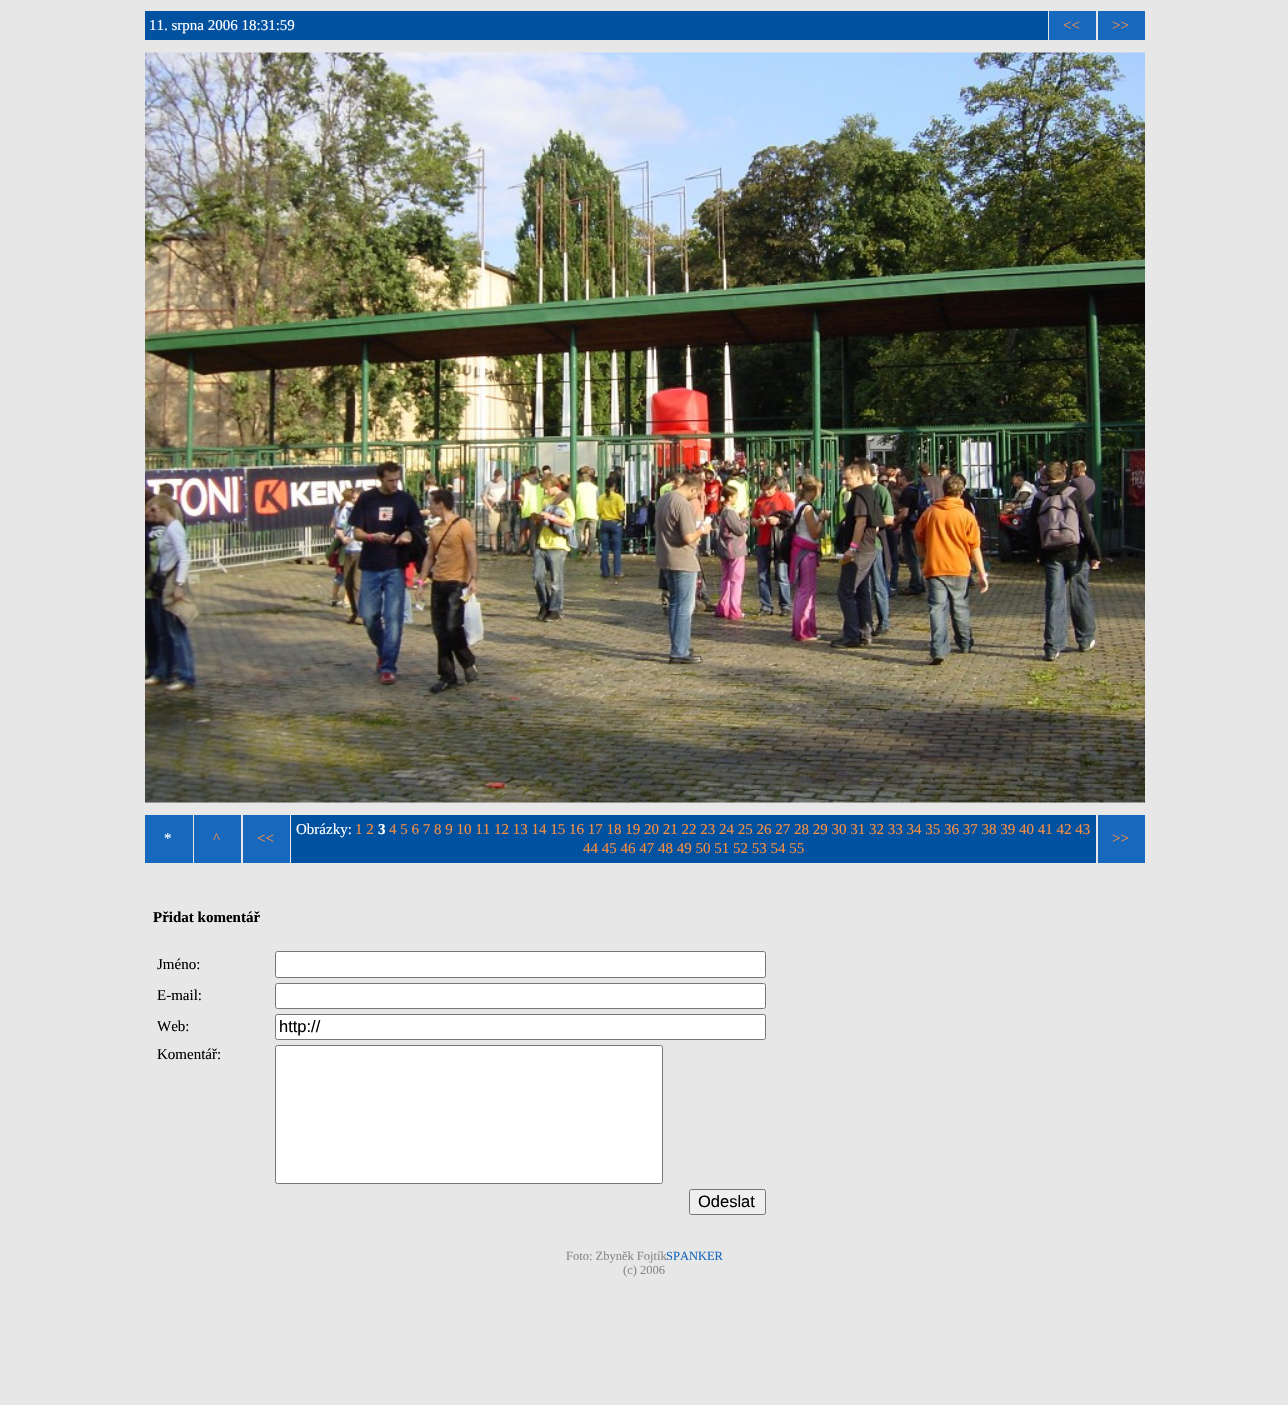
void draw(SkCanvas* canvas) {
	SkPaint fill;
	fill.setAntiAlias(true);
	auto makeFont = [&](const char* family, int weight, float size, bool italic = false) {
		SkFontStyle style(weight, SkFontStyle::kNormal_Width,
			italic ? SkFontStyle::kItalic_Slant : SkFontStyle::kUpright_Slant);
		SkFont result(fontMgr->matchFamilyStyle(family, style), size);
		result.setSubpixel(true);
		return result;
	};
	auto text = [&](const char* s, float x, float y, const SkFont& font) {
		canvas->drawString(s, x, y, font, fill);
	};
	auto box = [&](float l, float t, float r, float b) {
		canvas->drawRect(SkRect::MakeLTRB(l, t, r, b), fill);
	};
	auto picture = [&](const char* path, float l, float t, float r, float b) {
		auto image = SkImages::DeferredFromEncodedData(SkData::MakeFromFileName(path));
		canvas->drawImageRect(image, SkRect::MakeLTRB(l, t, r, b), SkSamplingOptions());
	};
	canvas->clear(0xFFE7E7E7);
	fill.setColor(0xFF0052A0);
	box(145, 11, 1048, 40);
	fill.setColor(0xFF1869BE);
	box(1049, 11, 1096, 40);
	box(1098, 11, 1145, 40);
	picture("image0.png", 145, 52, 1145, 803);
	box(145, 815, 193, 863);
	box(194, 815, 241, 863);
	box(243, 815, 290, 863);
	fill.setColor(0xFF0052A0);
	box(291, 815, 1096, 863);
	fill.setColor(0xFF1869BE);
	box(1098, 815, 1145, 863);
	fill.setColor(0xFFFFFFFF);
	canvas->drawRoundRect(SkRect::MakeLTRB(275.5f, 951.5f, 765.5f, 977.5f), 2, 2, fill);
	fill.setStyle(SkPaint::kStroke_Style);
	fill.setStrokeWidth(1);
	fill.setColor(0xFF767676);
	canvas->drawRoundRect(SkRect::MakeLTRB(275.5f, 951.5f, 765.5f, 977.5f), 2, 2, fill);
	fill.setStyle(SkPaint::kFill_Style);
	fill.setColor(0xFFFFFFFF);
	canvas->drawRoundRect(SkRect::MakeLTRB(275.5f, 983.5f, 765.5f, 1008.5f), 2, 2, fill);
	fill.setStyle(SkPaint::kStroke_Style);
	fill.setColor(0xFF767676);
	canvas->drawRoundRect(SkRect::MakeLTRB(275.5f, 983.5f, 765.5f, 1008.5f), 2, 2, fill);
	fill.setStyle(SkPaint::kFill_Style);
	fill.setColor(0xFFFFFFFF);
	canvas->drawRoundRect(SkRect::MakeLTRB(275.5f, 1014.5f, 765.5f, 1039.5f), 2, 2, fill);
	fill.setStyle(SkPaint::kStroke_Style);
	fill.setColor(0xFF767676);
	canvas->drawRoundRect(SkRect::MakeLTRB(275.5f, 1014.5f, 765.5f, 1039.5f), 2, 2, fill);
	fill.setStyle(SkPaint::kFill_Style);
	fill.setColor(0xFFFFFFFF);
	canvas->drawRoundRect(SkRect::MakeLTRB(275.5f, 1045.5f, 662.5f, 1183.5f), 2, 2, fill);
	fill.setStyle(SkPaint::kStroke_Style);
	fill.setColor(0xFF767676);
	canvas->drawRoundRect(SkRect::MakeLTRB(275.5f, 1045.5f, 662.5f, 1183.5f), 2, 2, fill);
	fill.setStyle(SkPaint::kFill_Style);
	fill.setColor(0xFFEFEFEF);
	canvas->drawRoundRect(SkRect::MakeLTRB(689.5f, 1189.5f, 765.5f, 1214.5f), 2, 2, fill);
	fill.setStyle(SkPaint::kStroke_Style);
	fill.setColor(0xFF767676);
	canvas->drawRoundRect(SkRect::MakeLTRB(689.5f, 1189.5f, 765.5f, 1214.5f), 2, 2, fill);
	auto font1 = makeFont("Liberation Serif", 400, 15);
	fill.setStyle(SkPaint::kFill_Style);
	fill.setColor(0xFFFFFFFF);
	text("11. srpna 2006 18:31:59", 149, 30, font1);
	fill.setColor(0xFFFB8F40);
	text("<<", 1063, 30, font1);
	text(">>", 1112, 30, font1);
	fill.setColor(0xFFFFFFFF);
	text("*", 164, 843, font1);
	fill.setColor(0xFFFB8F40);
	text("^", 213, 843, font1);
	text("<<", 257, 843, font1);
	fill.setColor(0xFFFFFFFF);
	text("Obrázky:", 296, 834, font1);
	fill.setColor(0xFFFB8F40);
	text("1 2", 355, 834, font1);
	auto font2 = makeFont("Liberation Serif", 700, 15);
	fill.setColor(0xFFFFFFFF);
	text("3", 378, 834, font2);
	fill.setColor(0xFFFB8F40);
	text("4 5 6 7 8 9 10 11 12 13 14 15 16 17 18 19 20 21 22 23 24 25 26 27 28 29 30 31 32 33 34 35 36 37 38 39 40 41 42 43", 389, 834, font1);
	text("44 45 46 47 48 49 50 51 52 53 54 55", 583, 853, font1);
	text(">>", 1112, 843, font1);
	fill.setColor(0xFF000000);
	text("Přidat komentář", 153, 922, font2);
	text("Jméno:", 157, 969, font1);
	text("E-mail:", 157, 1000, font1);
	text("Web:", 157, 1031, font1);
	auto font3 = makeFont("Liberation Sans", 400, 16.5f);
	text("http://", 279, 1032, font3);
	text("Komentář:", 157, 1059, font1);
	text("Odeslat", 698, 1207, font3);
	auto font4 = makeFont("Liberation Serif", 400, 12.5f);
	fill.setColor(0xFF888888);
	text("Foto: Zbyněk Fojtík", 566, 1260, font4);
	fill.setColor(0xFF1869BE);
	text("SPANKER", 666, 1260, font4);
	fill.setColor(0xFF888888);
	text("(c) 2006", 623, 1274, font4);
}
